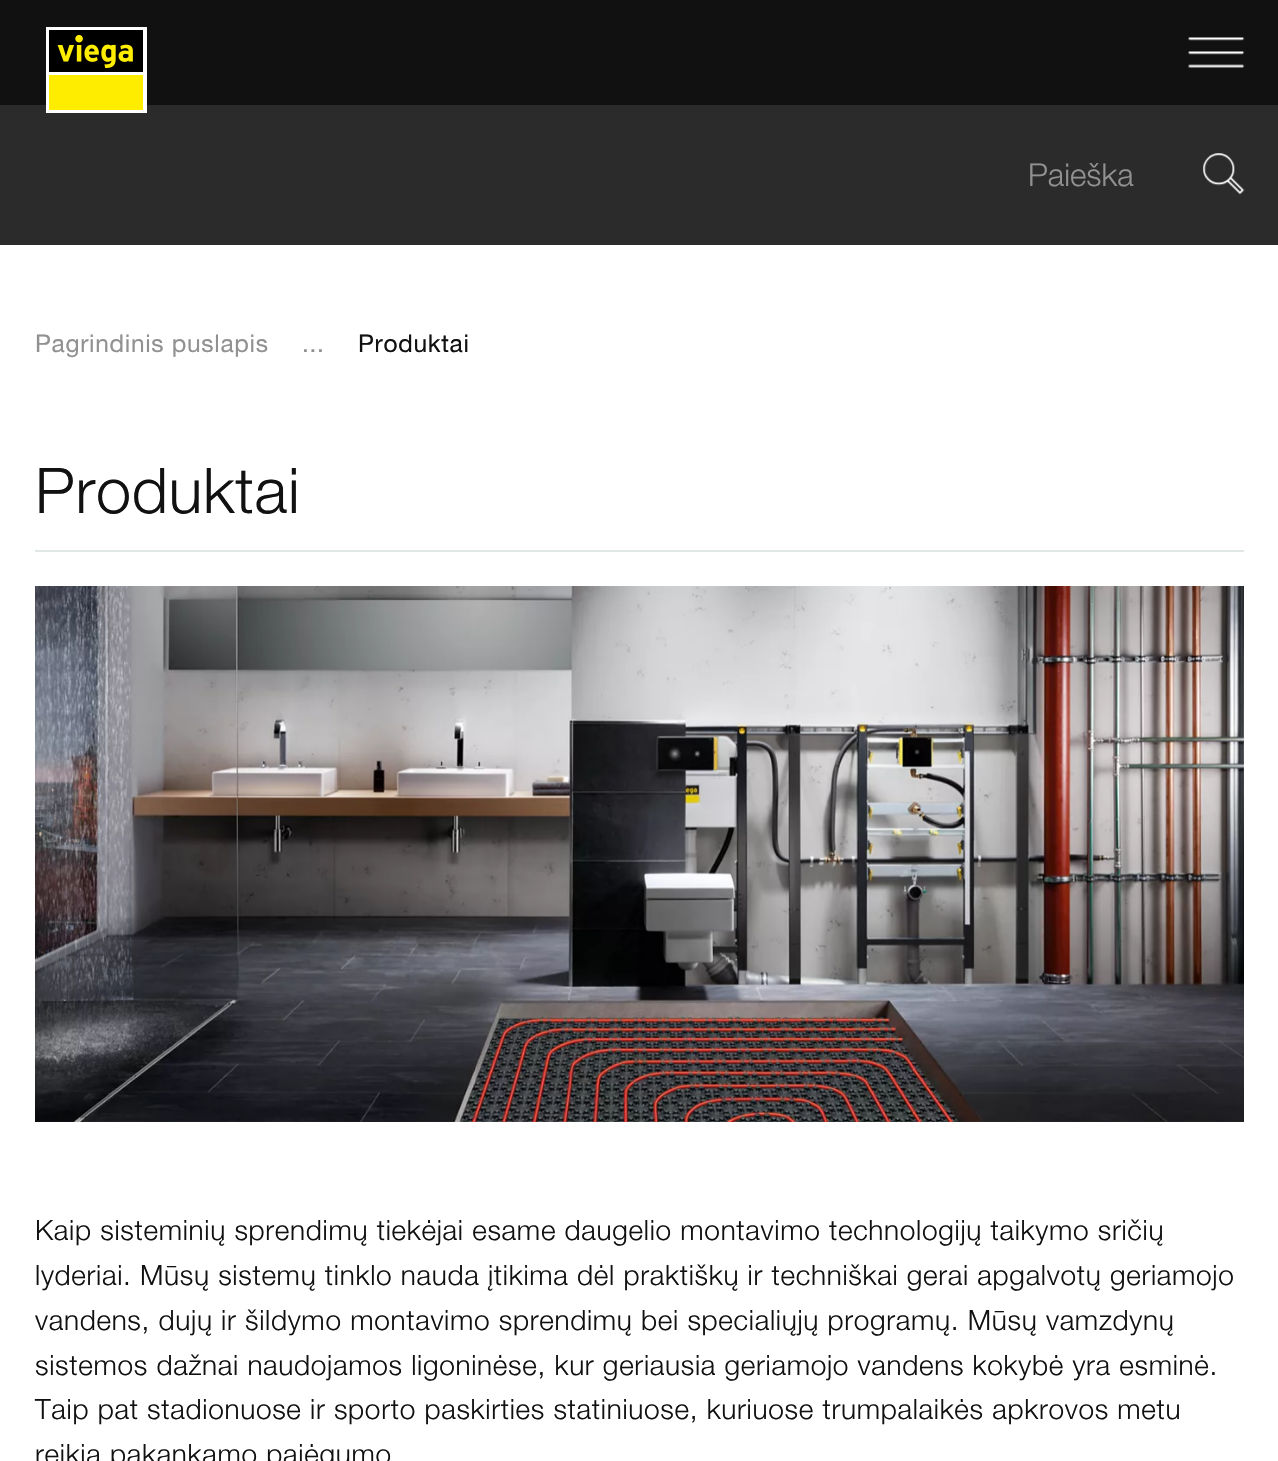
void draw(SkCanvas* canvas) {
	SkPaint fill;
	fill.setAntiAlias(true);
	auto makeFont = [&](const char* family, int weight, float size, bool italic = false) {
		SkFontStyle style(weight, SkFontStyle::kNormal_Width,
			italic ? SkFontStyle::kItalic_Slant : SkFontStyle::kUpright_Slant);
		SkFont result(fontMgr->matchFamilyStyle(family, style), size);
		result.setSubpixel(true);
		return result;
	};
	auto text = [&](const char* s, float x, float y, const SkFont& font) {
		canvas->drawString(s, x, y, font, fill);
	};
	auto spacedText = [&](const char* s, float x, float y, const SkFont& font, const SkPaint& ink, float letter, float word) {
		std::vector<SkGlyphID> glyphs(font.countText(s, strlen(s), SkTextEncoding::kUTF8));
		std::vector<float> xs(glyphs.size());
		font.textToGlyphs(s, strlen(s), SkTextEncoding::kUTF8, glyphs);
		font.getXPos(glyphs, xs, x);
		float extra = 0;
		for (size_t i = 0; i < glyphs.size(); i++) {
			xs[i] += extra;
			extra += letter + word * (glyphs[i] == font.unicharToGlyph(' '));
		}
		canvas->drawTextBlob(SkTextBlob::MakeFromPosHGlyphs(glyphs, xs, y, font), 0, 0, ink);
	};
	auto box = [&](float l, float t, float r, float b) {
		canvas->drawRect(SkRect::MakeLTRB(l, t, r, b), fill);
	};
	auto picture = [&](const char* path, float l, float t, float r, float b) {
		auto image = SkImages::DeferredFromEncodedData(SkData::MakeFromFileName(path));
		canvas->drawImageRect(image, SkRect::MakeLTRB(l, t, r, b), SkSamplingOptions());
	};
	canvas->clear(0xFF111111);
	fill.setColor(0xFF2B2B2B);
	box(0, 105, 1278, 245);
	picture("image0.png", 46, 27, 147, 113);
	picture("image1.png", 1188, 37, 1245, 68);
	picture("image2.png", 1203, 153, 1245, 195);
	fill.setColor(0xFFFFFFFF);
	box(0, 245, 1278, 1461);
	fill.setColor(0xFFE1E7E7);
	box(35, 550, 1244, 552);
	picture("image3.png", 35, 586, 1244, 1122);
	auto font1 = makeFont("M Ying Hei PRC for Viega", 300, 31.5f);
	fill.setColor(0xFF919191);
	text("Paieška", 1028, 186, font1);
	auto font2 = makeFont("M Ying Hei PRC for Viega", 400, 24.5f);
	spacedText("Pagrindinis puslapis", 35, 352, font2, fill, 0.7f, 0);
	spacedText("...", 302, 352, font2, fill, 0.7f, 0);
	fill.setColor(0xFF111111);
	spacedText("Produktai", 358, 352, font2, fill, 0.7f, 0);
	auto font3 = makeFont("M Ying Hei PRC for Viega", 300, 63);
	spacedText("Produktai", 35, 513, font3, fill, 0.7f, 0);
	auto font4 = makeFont("M Ying Hei PRC for Viega", 300, 28);
	spacedText("Kaip sisteminių sprendimų tiekėjai esame daugelio montavimo technologijų taikymo sričių", 35, 1240, font4, fill, 0.7f, 0);
	spacedText("lyderiai. Mūsų sistemų tinklo nauda įtikima dėl praktiškų ir techniškai gerai apgalvotų geriamojo", 35, 1285, font4, fill, 0.7f, 0);
	spacedText("vandens, dujų ir šildymo montavimo sprendimų bei specialiųjų programų. Mūsų vamzdynų", 35, 1330, font4, fill, 0.7f, 0);
	spacedText("sistemos dažnai naudojamos ligoninėse, kur geriausia geriamojo vandens kokybė yra esminė.", 35, 1375, font4, fill, 0.7f, 0);
	spacedText("Taip pat stadionuose ir sporto paskirties statiniuose, kuriuose trumpalaikės apkrovos metu", 35, 1419, font4, fill, 0.7f, 0);
	spacedText("reikia pakankamo pajėgumo", 35, 1464, font4, fill, 0.7f, 0);
}
